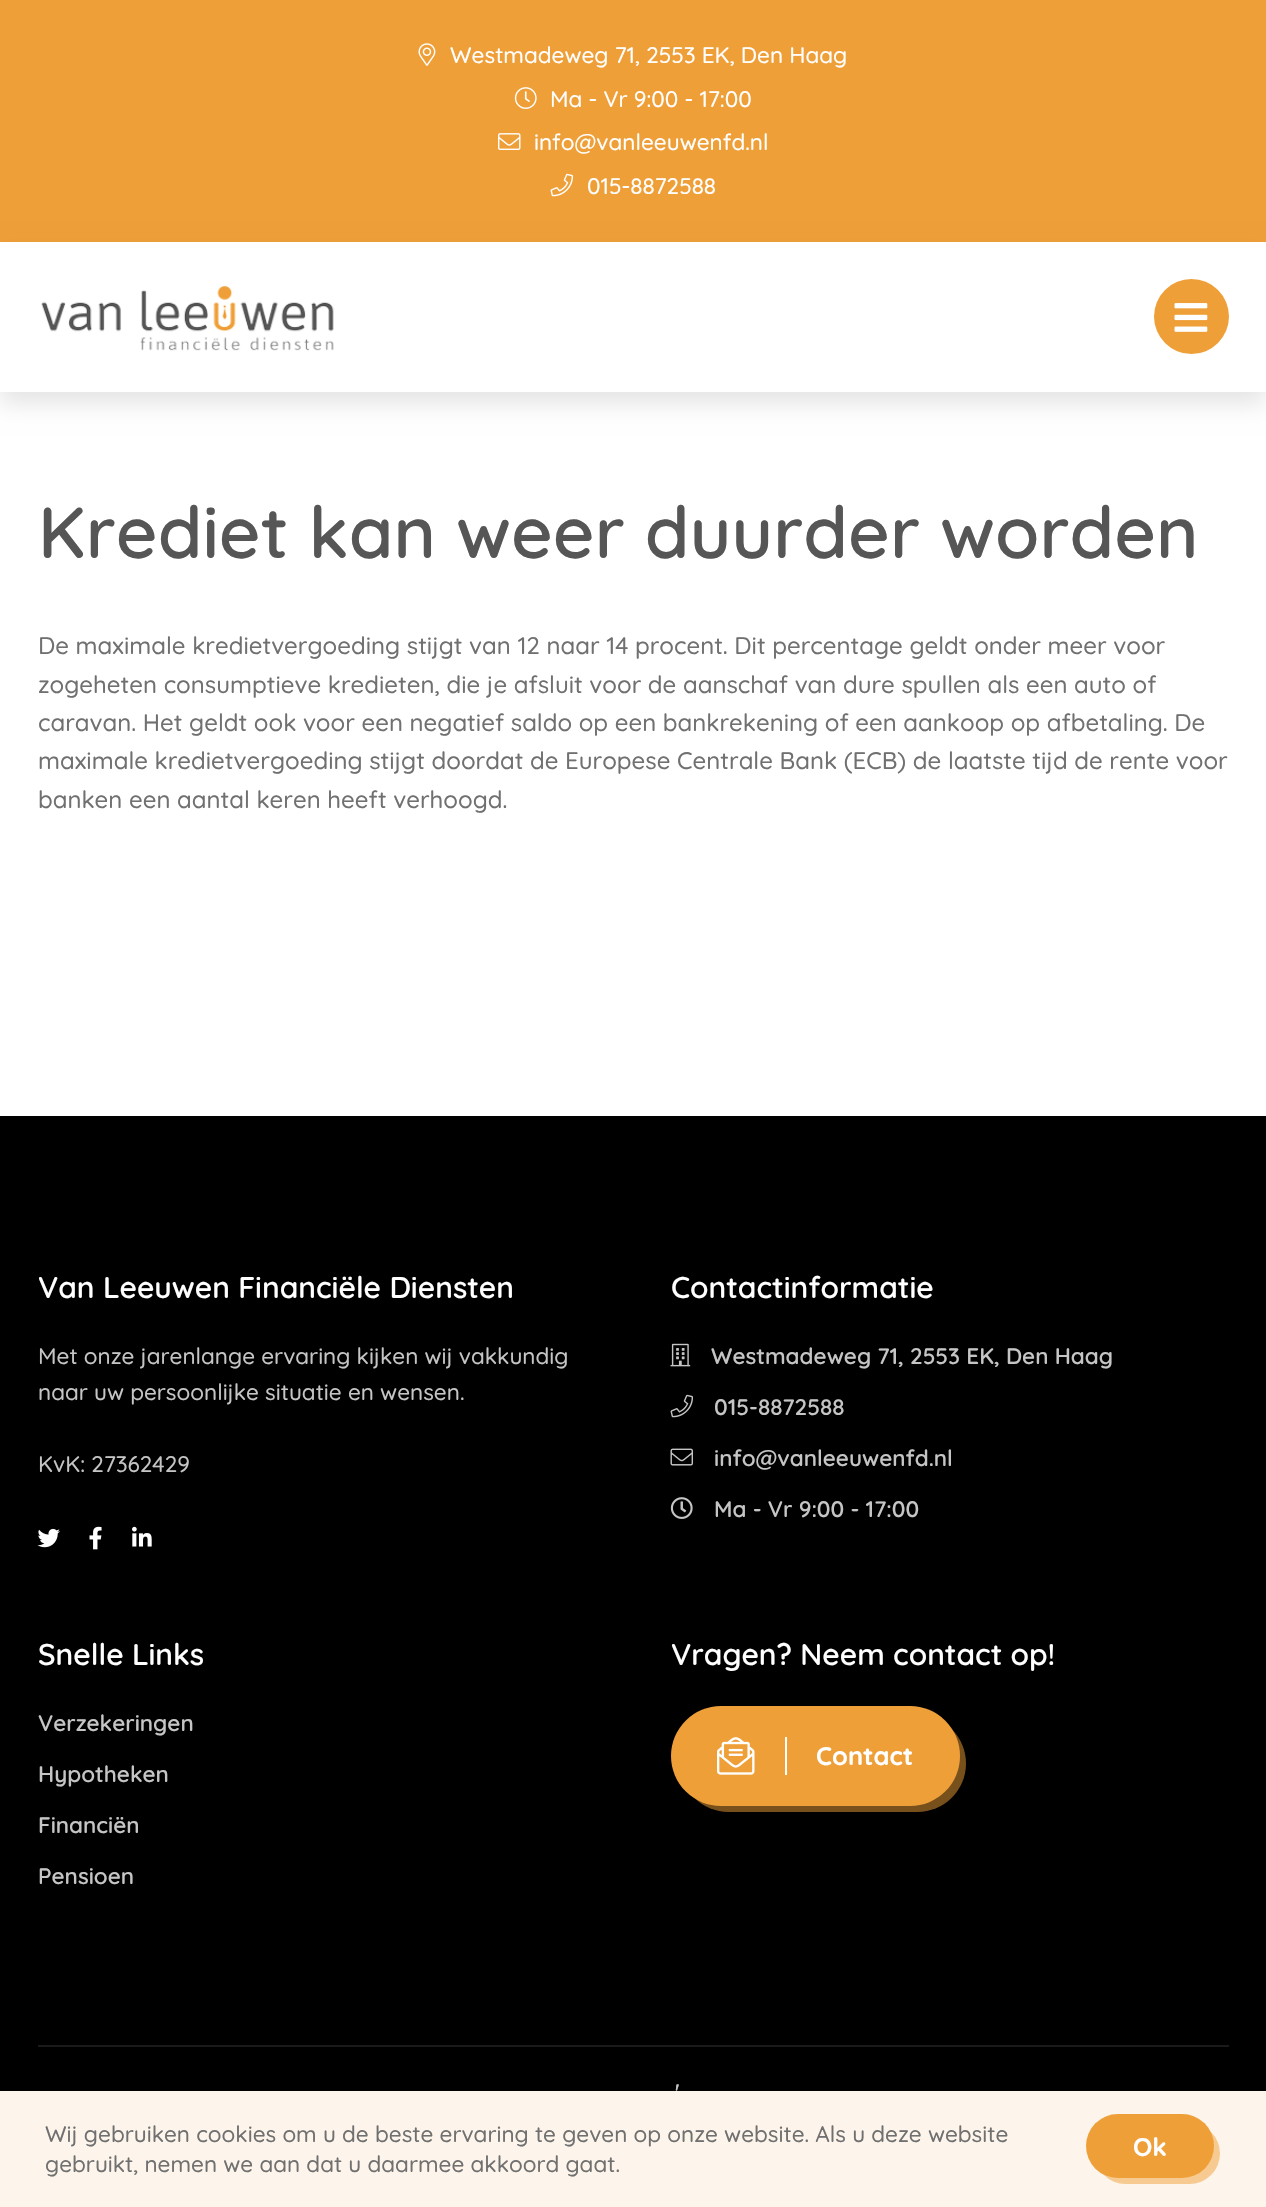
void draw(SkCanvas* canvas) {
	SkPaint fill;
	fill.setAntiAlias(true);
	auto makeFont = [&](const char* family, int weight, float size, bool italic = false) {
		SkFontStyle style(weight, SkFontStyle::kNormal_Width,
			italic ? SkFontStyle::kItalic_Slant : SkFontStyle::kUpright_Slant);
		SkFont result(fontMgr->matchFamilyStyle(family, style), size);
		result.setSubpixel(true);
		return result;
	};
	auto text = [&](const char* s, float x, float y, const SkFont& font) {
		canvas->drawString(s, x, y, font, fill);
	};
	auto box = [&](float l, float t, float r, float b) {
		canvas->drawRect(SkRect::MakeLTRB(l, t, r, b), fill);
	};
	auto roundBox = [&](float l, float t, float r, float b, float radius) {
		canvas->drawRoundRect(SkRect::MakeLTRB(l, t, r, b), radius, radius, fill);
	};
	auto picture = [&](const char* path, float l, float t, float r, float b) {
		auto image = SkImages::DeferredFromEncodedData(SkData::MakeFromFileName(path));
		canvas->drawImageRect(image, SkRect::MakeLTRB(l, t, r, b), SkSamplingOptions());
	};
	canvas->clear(0xFFFFFFFF);
	fill.setColor(0xFFEF9F38);
	box(0, 0, 1266, 242);
	picture("image0.png", 418, 43, 436, 66);
	picture("image1.png", 514, 87, 537, 109);
	picture("image2.png", 498, 133, 521, 150);
	picture("image3.png", 550, 173, 574, 197);
	fill.setColor(0x1A000000);
	fill.setMaskFilter(SkMaskFilter::MakeBlur(kNormal_SkBlurStyle, 11));
	canvas->drawRect(SkRect::MakeLTRB(0, 254, 1266, 404), fill);
	fill.setMaskFilter(nullptr);
	fill.setColor(0xFFFFFFFF);
	box(0, 242, 1266, 392);
	picture("image4.png", 41, 286, 334, 351);
	fill.setColor(0xFFEF9F38);
	canvas->drawCircle(1191.5f, 316.5f, 37.5f, fill);
	picture("image5.png", 1174, 303, 1208, 332);
	fill.setColor(0xFF000000);
	box(0, 1116, 1266, 2091);
	picture("image6.png", 37, 1528, 60, 1548);
	picture("image7.png", 89, 1526, 102, 1550);
	picture("image8.png", 132, 1526, 152, 1547);
	picture("image9.png", 670, 1343, 691, 1367);
	picture("image10.png", 670, 1394, 694, 1418);
	picture("image11.png", 670, 1448, 693, 1466);
	picture("image12.png", 670, 1497, 693, 1519);
	fill.setColor(0xFFEF9F38);
	roundBox(671, 1706, 960, 1806, 50);
	fill.setColor(0x80EF9F38);
	roundBox(680, 1715, 966, 1812, 48.5f);
	fill.setColor(0xFFFFFFFF);
	box(785, 1737, 787, 1775);
	picture("image13.png", 717, 1737, 755, 1775);
	fill.setColor(0xFF1A1A1A);
	box(38, 2045, 1229, 2047);
	fill.setColor(0x26000000);
	fill.setMaskFilter(SkMaskFilter::MakeBlur(kNormal_SkBlurStyle, 24));
	canvas->drawRect(SkRect::MakeLTRB(30, 2112, 1236, 2169), fill);
	fill.setMaskFilter(nullptr);
	fill.setColor(0xFFFDF5EB);
	box(0, 2091, 1266, 2207);
	fill.setColor(0xFFEF9F38);
	roundBox(1086, 2114, 1214, 2178, 32);
	fill.setColor(0x80EF9F38);
	roundBox(1095, 2123, 1220, 2184, 30.5f);
	auto font1 = makeFont("Quicksand", 500, 22.5f);
	fill.setColor(0xFFFFFFFF);
	text("Westmadeweg 71, 2553 EK, Den Haag", 450, 63, font1);
	text("Ma - Vr 9:00 - 17:00", 550, 107, font1);
	text("info@vanleeuwenfd.nl", 534, 150, font1);
	text("015-8872588", 587, 194, font1);
	auto font2 = makeFont("Quicksand", 600, 72);
	fill.setColor(0xFF565656);
	text("Krediet kan weer duurder worden", 38, 558, font2);
	auto font3 = makeFont("Quicksand", 500, 24);
	fill.setColor(0xFF707070);
	text("De maximale kredietvergoeding stijgt van 12 naar 14 procent. Dit percentage geldt onder meer voor", 38, 654, font3);
	text("zogeheten consumptieve kredieten, die je afsluit voor de aanschaf van dure spullen als een auto of", 38, 693, font3);
	text("caravan. Het geldt ook voor een negatief saldo op een bankrekening of een aankoop op afbetaling. De", 38, 731, font3);
	text("maximale kredietvergoeding stijgt doordat de Europese Centrale Bank (ECB) de laatste tijd de rente voor", 38, 769, font3);
	text("banken een aantal keren heeft verhoogd.", 38, 808, font3);
	auto font4 = makeFont("Quicksand", 600, 30);
	fill.setColor(0xFFFFFFFF);
	text("Van Leeuwen Financiële Diensten", 38, 1298, font4);
	fill.setColor(0xFFC5C5C5);
	text("Met onze jarenlange ervaring kijken wij vakkundig", 38, 1364, font1);
	text("naar uw persoonlijke situatie en wensen.", 38, 1400, font1);
	text("KvK: 27362429", 38, 1472, font1);
	fill.setColor(0xFFFFFFFF);
	text("Contactinformatie", 671, 1298, font4);
	auto font5 = makeFont("Quicksand", 600, 22.5f);
	fill.setColor(0xFFC5C5C5);
	text("Westmadeweg 71, 2553 EK, Den Haag", 711, 1364, font5);
	text("015-8872588", 714, 1415, font5);
	text("info@vanleeuwenfd.nl", 714, 1466, font5);
	text("Ma - Vr 9:00 - 17:00", 714, 1517, font5);
	fill.setColor(0xFFFFFFFF);
	text("Snelle Links", 38, 1665, font4);
	fill.setColor(0xFFC5C5C5);
	text("Verzekeringen", 38, 1731, font5);
	text("Hypotheken", 38, 1782, font5);
	text("Financiën", 38, 1833, font5);
	text("Pensioen", 38, 1884, font5);
	fill.setColor(0xFFFFFFFF);
	text("Vragen? Neem contact op!", 671, 1665, font4);
	auto font6 = makeFont("Quicksand", 700, 25.5f);
	text("Contact", 816, 1765, font6);
	fill.setColor(0xFFC5C5C5);
	text("'", 675, 2100, font5);
	fill.setColor(0xFF707070);
	text("Wij gebruiken cookies om u de beste ervaring te geven op onze website. Als u deze website", 45, 2142, font1);
	text("gebruikt, nemen we aan dat u daarmee akkoord gaat.", 45, 2172, font1);
	fill.setColor(0xFFFFFFFF);
	text("Ok", 1133, 2156, font6);
}
